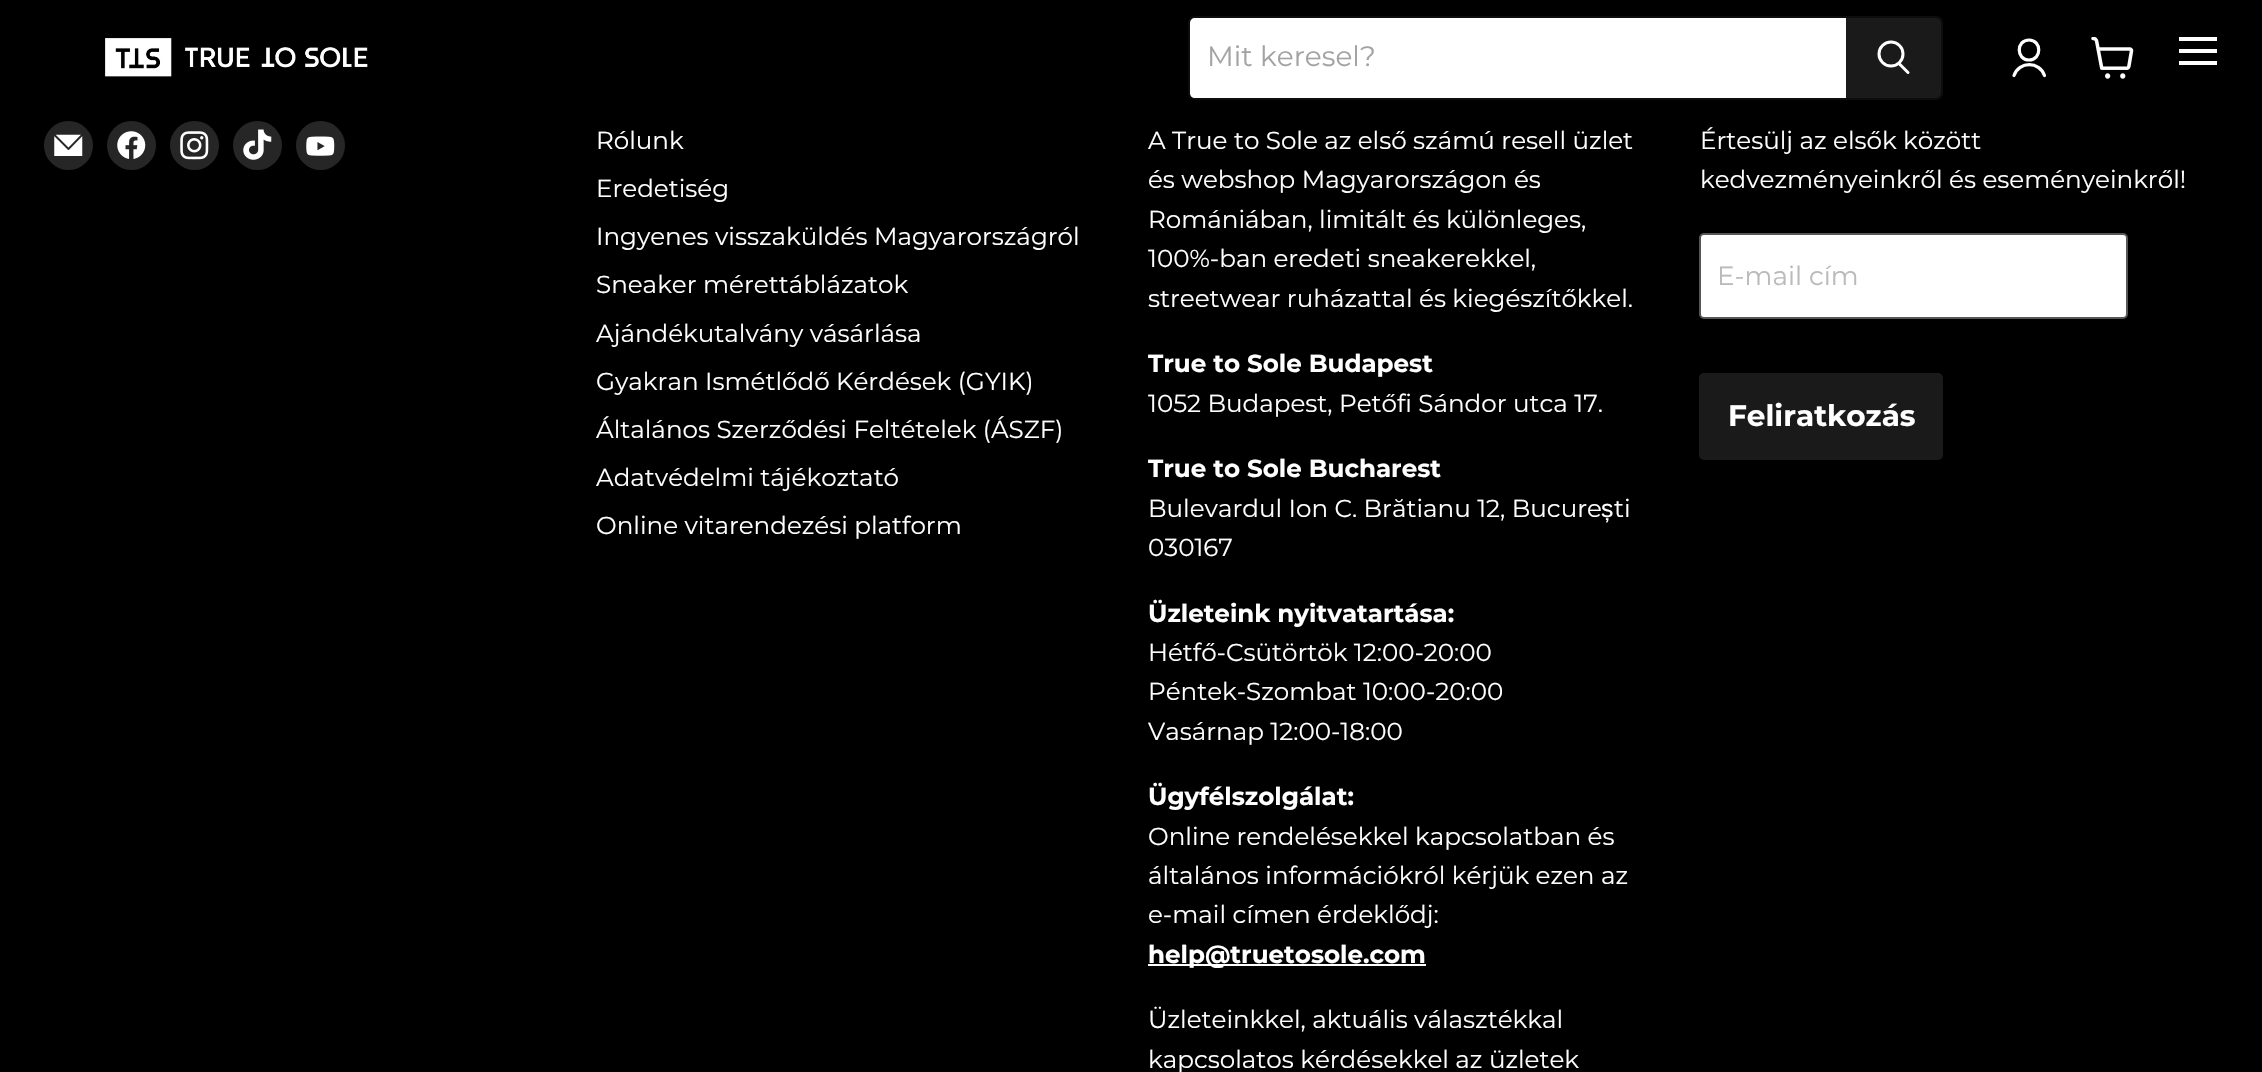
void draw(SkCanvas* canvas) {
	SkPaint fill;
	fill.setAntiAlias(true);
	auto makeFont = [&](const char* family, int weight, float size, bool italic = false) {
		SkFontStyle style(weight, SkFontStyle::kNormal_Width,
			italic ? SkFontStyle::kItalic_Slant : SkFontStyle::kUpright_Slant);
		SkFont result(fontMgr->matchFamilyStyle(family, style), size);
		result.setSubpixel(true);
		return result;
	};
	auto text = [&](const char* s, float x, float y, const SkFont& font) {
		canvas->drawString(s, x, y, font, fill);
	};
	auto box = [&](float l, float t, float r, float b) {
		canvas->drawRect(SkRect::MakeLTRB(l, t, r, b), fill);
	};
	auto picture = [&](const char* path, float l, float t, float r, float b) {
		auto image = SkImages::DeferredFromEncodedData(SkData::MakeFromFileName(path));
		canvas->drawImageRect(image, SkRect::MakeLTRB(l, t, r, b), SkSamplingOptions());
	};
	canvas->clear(0xFF000000);
	picture("image0.png", 105, 38, 368, 77);
	fill.setStyle(SkPaint::kStroke_Style);
	fill.setStrokeWidth(2);
	fill.setColor(0x33404040);
	canvas->drawRoundRect(SkRect::MakeLTRB(1189, 17, 1942, 99), 6, 6, fill);
	fill.setStyle(SkPaint::kFill_Style);
	fill.setColor(0xFFFFFFFF);
	canvas->drawPath(SkPathBuilder().moveTo(1195, 18).lineTo(1846, 18).lineTo(1846, 98).lineTo(1195, 98).cubicTo(1192, 98, 1190, 96, 1190, 93).lineTo(1190, 23).cubicTo(1190, 20, 1192, 18, 1195, 18).close().detach(), fill);
	fill.setColor(0xFF1A1A1A);
	canvas->drawPath(SkPathBuilder().moveTo(1847, 19).lineTo(1936, 19).cubicTo(1938, 19, 1940, 21, 1940, 23).lineTo(1940, 93).cubicTo(1940, 95, 1938, 97, 1936, 97).lineTo(1847, 97).close().detach(), fill);
	fill.setStyle(SkPaint::kStroke_Style);
	canvas->drawPath(SkPathBuilder().moveTo(1847, 19).lineTo(1936, 19).cubicTo(1938, 19, 1940, 21, 1940, 23).lineTo(1940, 93).cubicTo(1940, 95, 1938, 97, 1936, 97).lineTo(1847, 97).close().detach(), fill);
	fill.setStrokeWidth(3);
	fill.setStrokeCap(SkPaint::kRound_Cap);
	fill.setColor(0xFFFFFFFF);
	canvas->drawPath(SkPathBuilder().moveTo(1908, 72.5f).lineTo(1899.5f, 64).detach(), fill);
	fill.setStrokeCap(SkPaint::kButt_Cap);
	canvas->drawCircle(1891, 54, 12, fill);
	fill.setStrokeWidth(3.2f);
	fill.setStrokeCap(SkPaint::kRound_Cap);
	fill.setStrokeJoin(SkPaint::kRound_Join);
	canvas->drawPath(SkPathBuilder().moveTo(2029, 60).cubicTo(2042, 60, 2042, 40, 2029, 40).cubicTo(2016, 40, 2016, 60, 2029, 60).close().moveTo(2044.5f, 75.5f).cubicTo(2039.5f, 61, 2019, 61, 2014, 75.5f).detach(), fill);
	picture("image1.png", 2091, 37, 2134, 79);
	fill.setStyle(SkPaint::kFill_Style);
	box(2179, 37, 2217, 41);
	box(2179, 49, 2217, 53);
	box(2179, 61, 2217, 65);
	fill.setColor(0xFF262626);
	canvas->drawCircle(68.5f, 145.5f, 24.5f, fill);
	picture("image2.png", 54, 134, 83, 156);
	canvas->drawCircle(131.5f, 145.5f, 24.5f, fill);
	picture("image3.png", 117, 131, 146, 159);
	canvas->drawCircle(194.5f, 145.5f, 24.5f, fill);
	picture("image4.png", 180, 131, 209, 160);
	canvas->drawCircle(257.5f, 145.5f, 24.5f, fill);
	picture("image5.png", 243, 129, 272, 160);
	canvas->drawCircle(320.5f, 145.5f, 24.5f, fill);
	picture("image6.png", 306, 136, 335, 156);
	fill.setColor(0xFFFFFFFF);
	box(1148, 964, 1426, 966);
	canvas->drawRoundRect(SkRect::MakeLTRB(1700, 234, 2127, 318), 4, 4, fill);
	fill.setStyle(SkPaint::kStroke_Style);
	fill.setStrokeWidth(2);
	fill.setStrokeCap(SkPaint::kButt_Cap);
	fill.setStrokeJoin(SkPaint::kMiter_Join);
	fill.setColor(0xFF565656);
	canvas->drawRoundRect(SkRect::MakeLTRB(1700, 234, 2127, 318), 4, 4, fill);
	fill.setStyle(SkPaint::kFill_Style);
	fill.setColor(0xFF1A1A1A);
	canvas->drawRoundRect(SkRect::MakeLTRB(1700, 374, 1942, 459), 4, 4, fill);
	fill.setStyle(SkPaint::kStroke_Style);
	canvas->drawRoundRect(SkRect::MakeLTRB(1700, 374, 1942, 459), 4, 4, fill);
	auto font1 = makeFont("Montserrat", 400, 28);
	fill.setStyle(SkPaint::kFill_Style);
	fill.setColor(0xFFA3A3A3);
	text("Mit keresel?", 1207, 66, font1);
	auto font2 = makeFont("Montserrat", 400, 24.6f);
	fill.setColor(0xFFFFFFFF);
	text("Rólunk", 596, 149, font2);
	text("Eredetiség", 596, 197, font2);
	text("Ingyenes visszaküldés Magyarországról", 596, 245, font2);
	text("Sneaker mérettáblázatok", 596, 293, font2);
	text("Ajándékutalvány vásárlása", 596, 342, font2);
	text("Gyakran Ismétlődő Kérdések (GYIK)", 596, 390, font2);
	text("Általános Szerződési Feltételek (ÁSZF)", 596, 438, font2);
	text("Adatvédelmi tájékoztató", 596, 486, font2);
	text("Online vitarendezési platform", 596, 534, font2);
	text("A True to Sole az első számú resell üzlet", 1148, 149, font2);
	text("és webshop Magyarországon és", 1148, 188, font2);
	text("Romániában, limitált és különleges,", 1148, 228, font2);
	text("100%-ban eredeti sneakerekkel,", 1148, 267, font2);
	text("streetwear ruházattal és kiegészítőkkel.", 1148, 307, font2);
	auto font3 = makeFont("Montserrat", 700, 24.6f);
	text("True to Sole Budapest", 1148, 372, font3);
	text("1052 Budapest, Petőfi Sándor utca 17.", 1148, 412, font2);
	text("True to Sole Bucharest", 1148, 477, font3);
	text("Bulevardul Ion C. Brătianu 12, Bucure", 1148, 517, font2);
	auto font4 = makeFont("Liberation Sans", 400, 24.6f);
	text("ș", 1601, 517, font4);
	text("ti", 1614, 517, font2);
	text("030167", 1148, 556, font2);
	text("Üzleteink nyitvatartása:", 1148, 622, font3);
	text("Hétfő-Csütörtök 12:00-20:00", 1148, 661, font2);
	text("Péntek-Szombat 10:00-20:00", 1148, 700, font2);
	text("Vasárnap 12:00-18:00", 1148, 740, font2);
	text("Ügyfélszolgálat:", 1148, 805, font3);
	text("Online rendelésekkel kapcsolatban és", 1148, 845, font2);
	text("általános információkról kérjük ezen az", 1148, 884, font2);
	text("e-mail címen érdeklődj:", 1148, 923, font2);
	text("help@truetosole.com", 1148, 963, font3);
	text("Üzleteinkkel, aktuális választékkal", 1148, 1028, font2);
	text("kapcsolatos kérdésekkel az üzletek", 1148, 1068, font2);
	text("Értesülj az elsők között", 1700, 149, font2);
	text("kedvezményeinkről és eseményeinkről!", 1700, 188, font2);
	auto font5 = makeFont("Montserrat", 400, 26.25f);
	fill.setColor(0xFFBABABA);
	text("E-mail cím", 1717, 285, font5);
	auto font6 = makeFont("Montserrat", 700, 29.5f);
	fill.setColor(0xFFFFFFFF);
	text("Feliratkozás", 1728, 426, font6);
}
